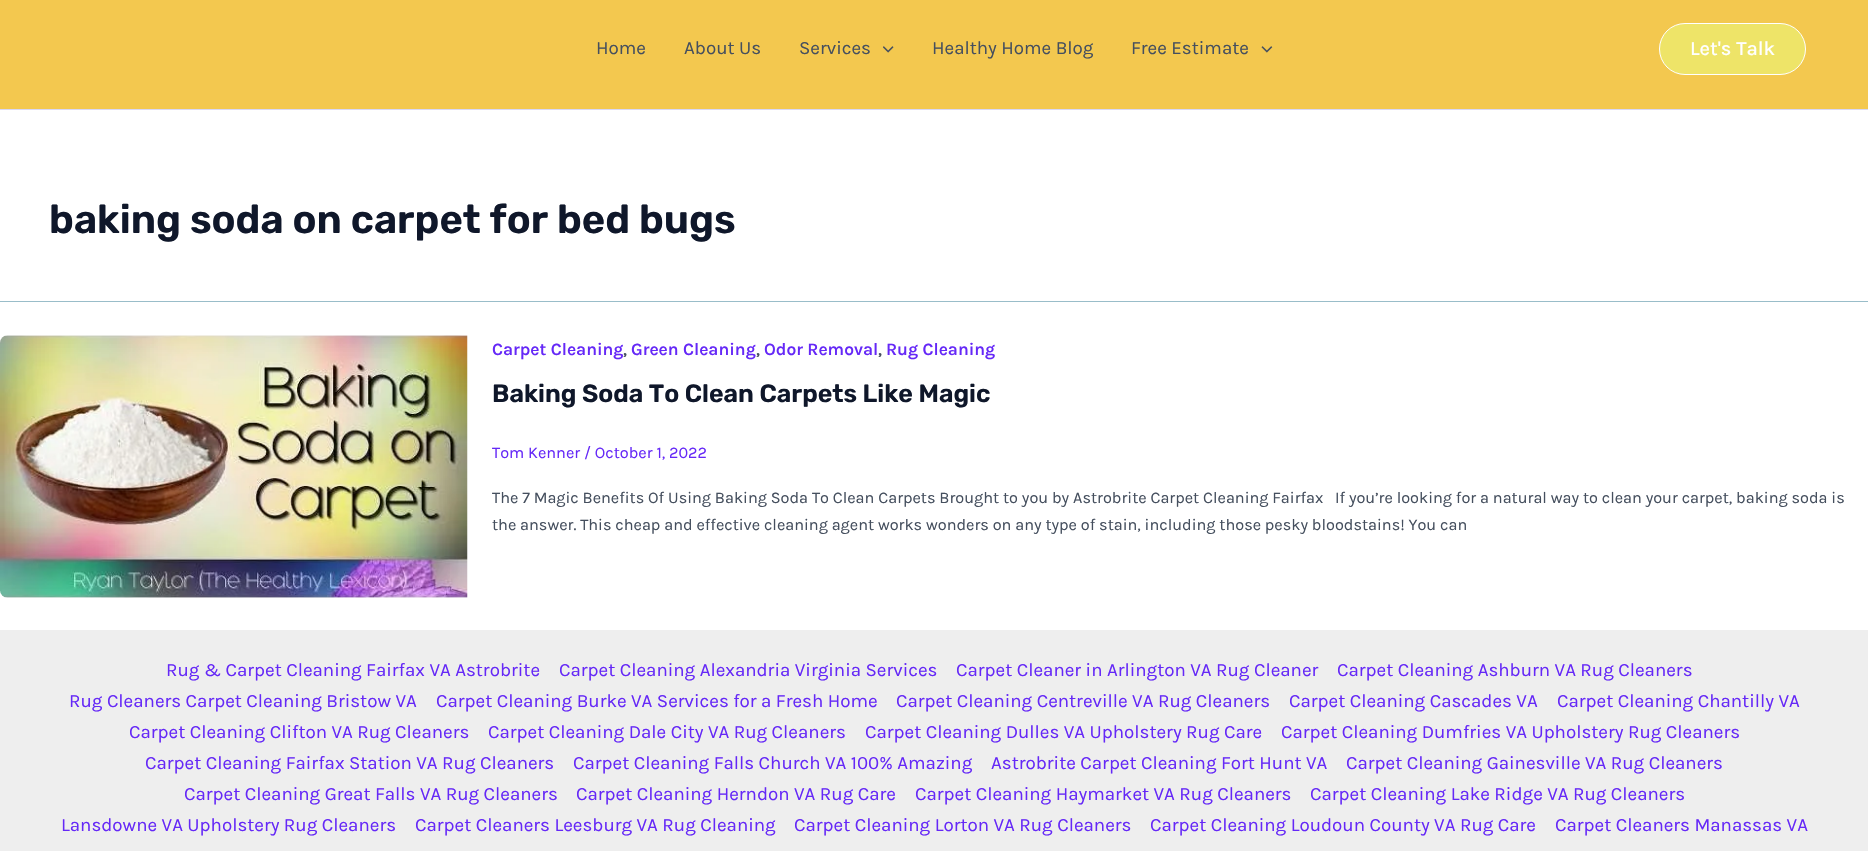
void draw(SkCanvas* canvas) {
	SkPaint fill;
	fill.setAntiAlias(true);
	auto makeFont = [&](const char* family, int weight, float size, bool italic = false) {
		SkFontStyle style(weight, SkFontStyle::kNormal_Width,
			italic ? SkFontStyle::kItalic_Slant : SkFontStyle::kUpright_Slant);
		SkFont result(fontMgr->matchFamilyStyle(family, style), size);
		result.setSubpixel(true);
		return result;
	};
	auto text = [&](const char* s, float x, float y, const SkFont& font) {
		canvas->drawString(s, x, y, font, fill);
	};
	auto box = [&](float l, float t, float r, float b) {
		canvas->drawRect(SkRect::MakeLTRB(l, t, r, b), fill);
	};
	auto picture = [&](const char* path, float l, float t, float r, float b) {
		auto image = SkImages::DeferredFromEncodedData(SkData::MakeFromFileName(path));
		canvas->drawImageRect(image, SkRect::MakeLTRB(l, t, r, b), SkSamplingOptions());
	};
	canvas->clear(0xFFFFFFFF);
	fill.setColor(0xFFF3C84F);
	box(0, 0, 1868, 109);
	fill.setColor(0xFFD8D8F5);
	box(0, 109, 1868, 110);
	picture("image0.png", 883, 46, 894, 53);
	picture("image1.png", 1261, 46, 1273, 53);
	fill.setColor(0xFFEEE468);
	canvas->drawRoundRect(SkRect::MakeLTRB(1659.5f, 23.5f, 1805.5f, 74.5f), 25.5f, 25.5f, fill);
	fill.setStyle(SkPaint::kStroke_Style);
	fill.setStrokeWidth(1);
	fill.setColor(0xFFFFFFFF);
	canvas->drawRoundRect(SkRect::MakeLTRB(1659.5f, 23.5f, 1805.5f, 74.5f), 25.5f, 25.5f, fill);
	fill.setStyle(SkPaint::kFill_Style);
	fill.setColor(0xFF99BDC9);
	box(0, 301, 1868, 302);
	picture("image2.png", 0, 335, 468, 598);
	fill.setColor(0xFFEEEEEE);
	box(0, 630, 1868, 851);
	auto font1 = makeFont("Karla", 400, 18.75f);
	fill.setColor(0xFF454F5E);
	text("Home", 596, 54, font1);
	text("About Us", 684, 54, font1);
	text("Services", 799, 54, font1);
	text("Healthy Home Blog", 932, 54, font1);
	text("Free Estimate", 1131, 54, font1);
	auto font2 = makeFont("Karla", 500, 20);
	fill.setColor(0xFFFFFFFF);
	text("Let's Talk", 1690, 55, font2);
	auto font3 = makeFont("Rubik", 600, 40);
	fill.setColor(0xFF0F172A);
	text("baking soda on carpet for bed bugs", 49, 233, font3);
	auto font4 = makeFont("Karla", 600, 17.5f);
	fill.setColor(0xFF6528F7);
	text("Carpet Cleaning", 492, 355, font4);
	auto font5 = makeFont("Karla", 600, 16.25f);
	fill.setColor(0xFF454F5E);
	text(",", 623, 355, font5);
	fill.setColor(0xFF6528F7);
	text("Green Cleaning", 631, 355, font4);
	fill.setColor(0xFF454F5E);
	text(",", 756, 355, font5);
	fill.setColor(0xFF6528F7);
	text("Odor Removal", 764, 355, font4);
	fill.setColor(0xFF454F5E);
	text(",", 878, 355, font5);
	fill.setColor(0xFF6528F7);
	text("Rug Cleaning", 886, 355, font4);
	auto font6 = makeFont("Rubik", 600, 25);
	fill.setColor(0xFF0F172A);
	text("Baking Soda To Clean Carpets Like Magic", 492, 402, font6);
	auto font7 = makeFont("Karla", 400, 16.25f);
	fill.setColor(0xFF6528F7);
	text("Tom Kenner / October 1, 2022", 492, 458, font7);
	fill.setColor(0xFF454F5E);
	text("The 7 Magic Benefits Of Using Baking Soda To Clean Carpets Brought to you by Astrobrite Carpet Cleaning Fairfax   If you’re looking for a natural way to clean your carpet, baking soda is", 492, 503, font7);
	text("the answer. This cheap and effective cleaning agent works wonders on any type of stain, including those pesky bloodstains! You can", 492, 530, font7);
	fill.setColor(0xFF6528F7);
	text("Rug & Carpet Cleaning Fairfax VA Astrobrite", 166, 676, font1);
	text("Carpet Cleaning Alexandria Virginia Services", 559, 676, font1);
	text("Carpet Cleaner in Arlington VA Rug Cleaner", 956, 676, font1);
	text("Carpet Cleaning Ashburn VA Rug Cleaners", 1337, 676, font1);
	text("Rug Cleaners Carpet Cleaning Bristow VA", 69, 707, font1);
	text("Carpet Cleaning Burke VA Services for a Fresh Home", 436, 707, font1);
	text("Carpet Cleaning Centreville VA Rug Cleaners", 896, 707, font1);
	text("Carpet Cleaning Cascades VA", 1289, 707, font1);
	text("Carpet Cleaning Chantilly VA", 1557, 707, font1);
	text("Carpet Cleaning Clifton VA Rug Cleaners", 129, 738, font1);
	text("Carpet Cleaning Dale City VA Rug Cleaners", 488, 738, font1);
	text("Carpet Cleaning Dulles VA Upholstery Rug Care", 865, 738, font1);
	text("Carpet Cleaning Dumfries VA Upholstery Rug Cleaners", 1281, 738, font1);
	text("Carpet Cleaning Fairfax Station VA Rug Cleaners", 145, 769, font1);
	text("Carpet Cleaning Falls Church VA 100% Amazing", 573, 769, font1);
	text("Astrobrite Carpet Cleaning Fort Hunt VA", 991, 769, font1);
	text("Carpet Cleaning Gainesville VA Rug Cleaners", 1346, 769, font1);
	text("Carpet Cleaning Great Falls VA Rug Cleaners", 184, 800, font1);
	text("Carpet Cleaning Herndon VA Rug Care", 576, 800, font1);
	text("Carpet Cleaning Haymarket VA Rug Cleaners", 915, 800, font1);
	text("Carpet Cleaning Lake Ridge VA Rug Cleaners", 1310, 800, font1);
	text("Lansdowne VA Upholstery Rug Cleaners", 61, 831, font1);
	text("Carpet Cleaners Leesburg VA Rug Cleaning", 415, 831, font1);
	text("Carpet Cleaning Lorton VA Rug Cleaners", 794, 831, font1);
	text("Carpet Cleaning Loudoun County VA Rug Care", 1150, 831, font1);
	text("Carpet Cleaners Manassas VA", 1555, 831, font1);
}
